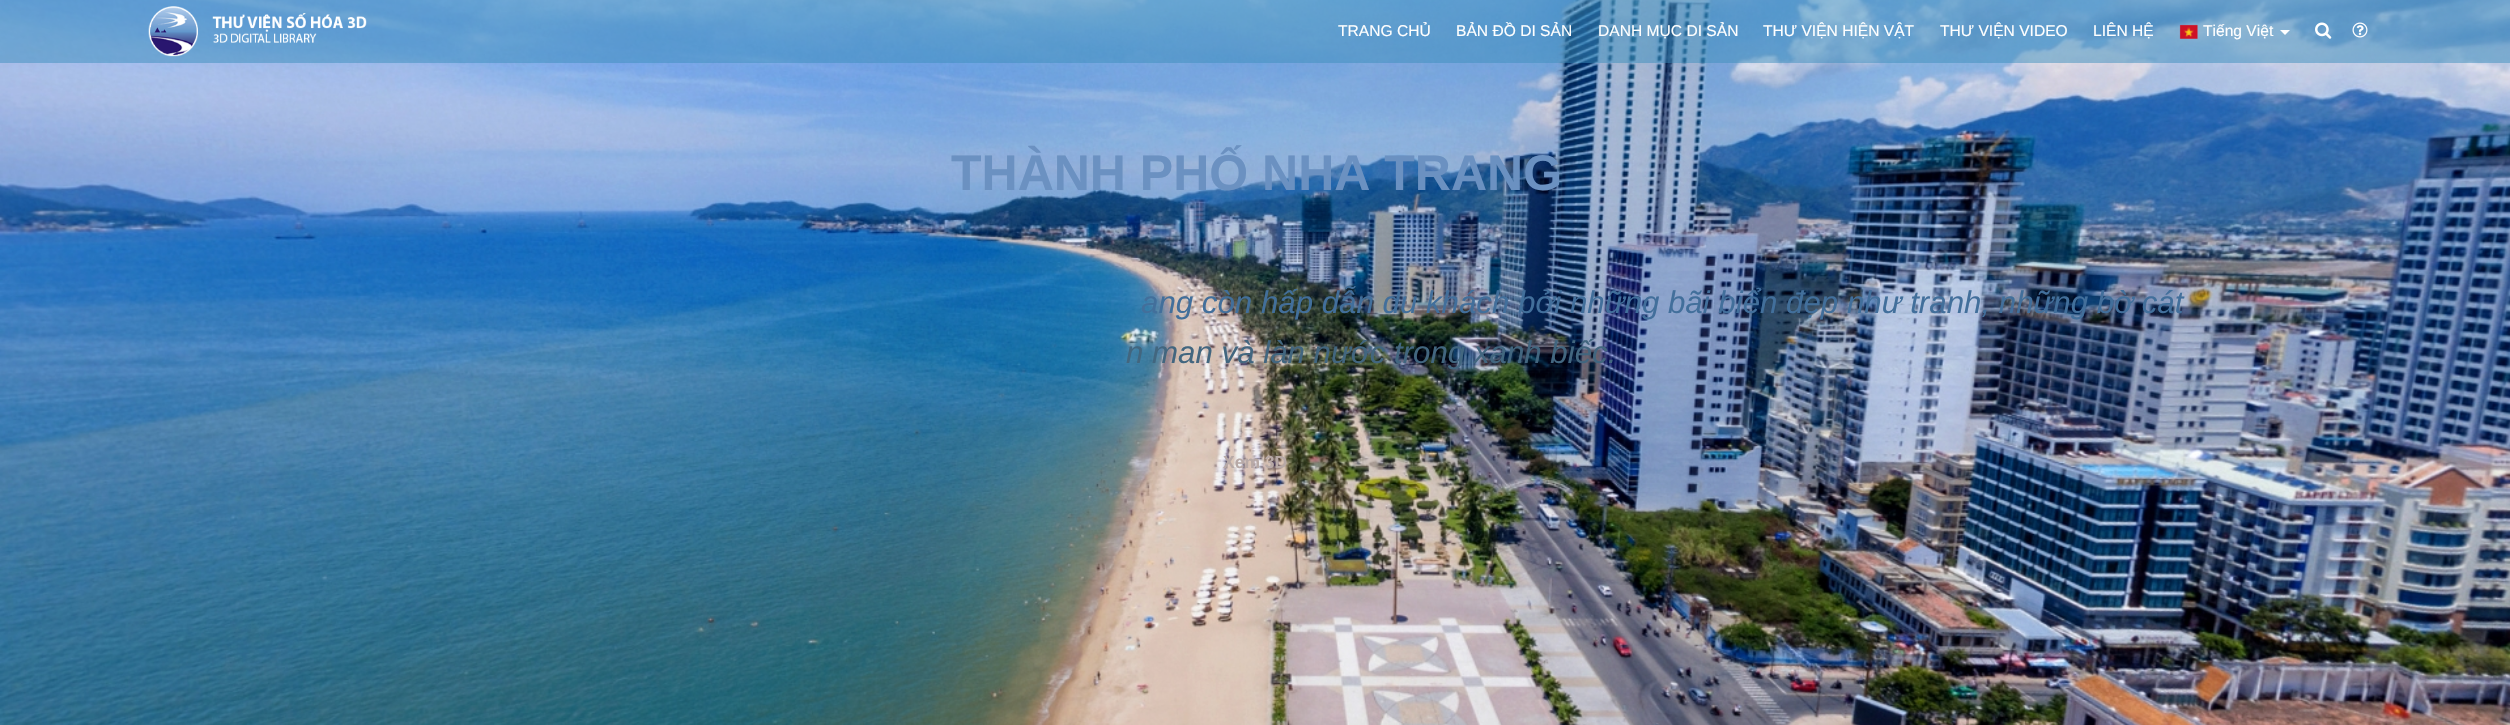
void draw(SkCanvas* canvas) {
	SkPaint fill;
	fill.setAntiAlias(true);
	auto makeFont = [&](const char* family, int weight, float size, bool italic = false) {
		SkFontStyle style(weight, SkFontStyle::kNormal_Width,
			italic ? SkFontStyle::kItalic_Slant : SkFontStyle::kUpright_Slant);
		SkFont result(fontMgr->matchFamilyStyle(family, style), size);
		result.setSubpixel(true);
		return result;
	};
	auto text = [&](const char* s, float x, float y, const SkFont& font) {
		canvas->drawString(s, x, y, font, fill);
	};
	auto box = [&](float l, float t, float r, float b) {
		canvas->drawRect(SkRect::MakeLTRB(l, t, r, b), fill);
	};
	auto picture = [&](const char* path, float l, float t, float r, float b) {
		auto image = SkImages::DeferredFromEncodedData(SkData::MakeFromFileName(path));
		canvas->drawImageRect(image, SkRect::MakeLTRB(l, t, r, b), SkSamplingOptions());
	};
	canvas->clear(0xFFFFFFFF);
	picture("image4.png", 0, 0, 2510, 725);
	fill.setColor(0x803C8DBC);
	box(0, 0, 2510, 63);
	picture("image0.png", 148, 6, 367, 57);
	picture("image1.png", 2179, 24, 2198, 39);
	fill.setColor(0xFFFFFFFF);
	canvas->drawPath(SkPathBuilder().moveTo(2280, 30).lineTo(2290, 30).lineTo(2285, 35).close().detach(), fill);
	picture("image2.png", 2315, 22, 2332, 39);
	picture("image3.png", 2352, 22, 2368, 38);
	auto font1 = makeFont("Liberation Sans", 400, 15.6f);
	text("TRANG CHỦ", 1338, 36, font1);
	text("BẢN ĐỒ DI SẢN", 1456, 36, font1);
	text("DANH MỤC DI SẢN", 1598, 36, font1);
	text("THƯ VIỆN HIỆN VẬT", 1763, 36, font1);
	text("THƯ VIỆN VIDEO", 1940, 36, font1);
	text("LIÊN HỆ", 2093, 36, font1);
	text("Tiếng Việt", 2203, 36, font1);
	auto font2 = makeFont("Liberation Sans", 700, 50);
	fill.setColor(0xFF6B91C1);
	text("THÀNH PHỐ NHA TRANG", 951, 190, font2);
	auto font3 = makeFont("Liberation Sans", 400, 31.25f, true);
	fill.setColor(0xFF426F9B);
	text("ang còn hấp dẫn du khách bởi những bãi biển đẹp như tranh, những bờ cát", 1141, 313, font3);
	fill.setColor(0xFF42667F);
	text("n man và làn nước trong xanh biếc.", 1126, 363, font3);
	auto font4 = makeFont("Liberation Sans", 700, 17.5f);
	fill.setColor(0xFFB7A9A6);
	text("Xem 3D", 1223, 468, font4);
}
